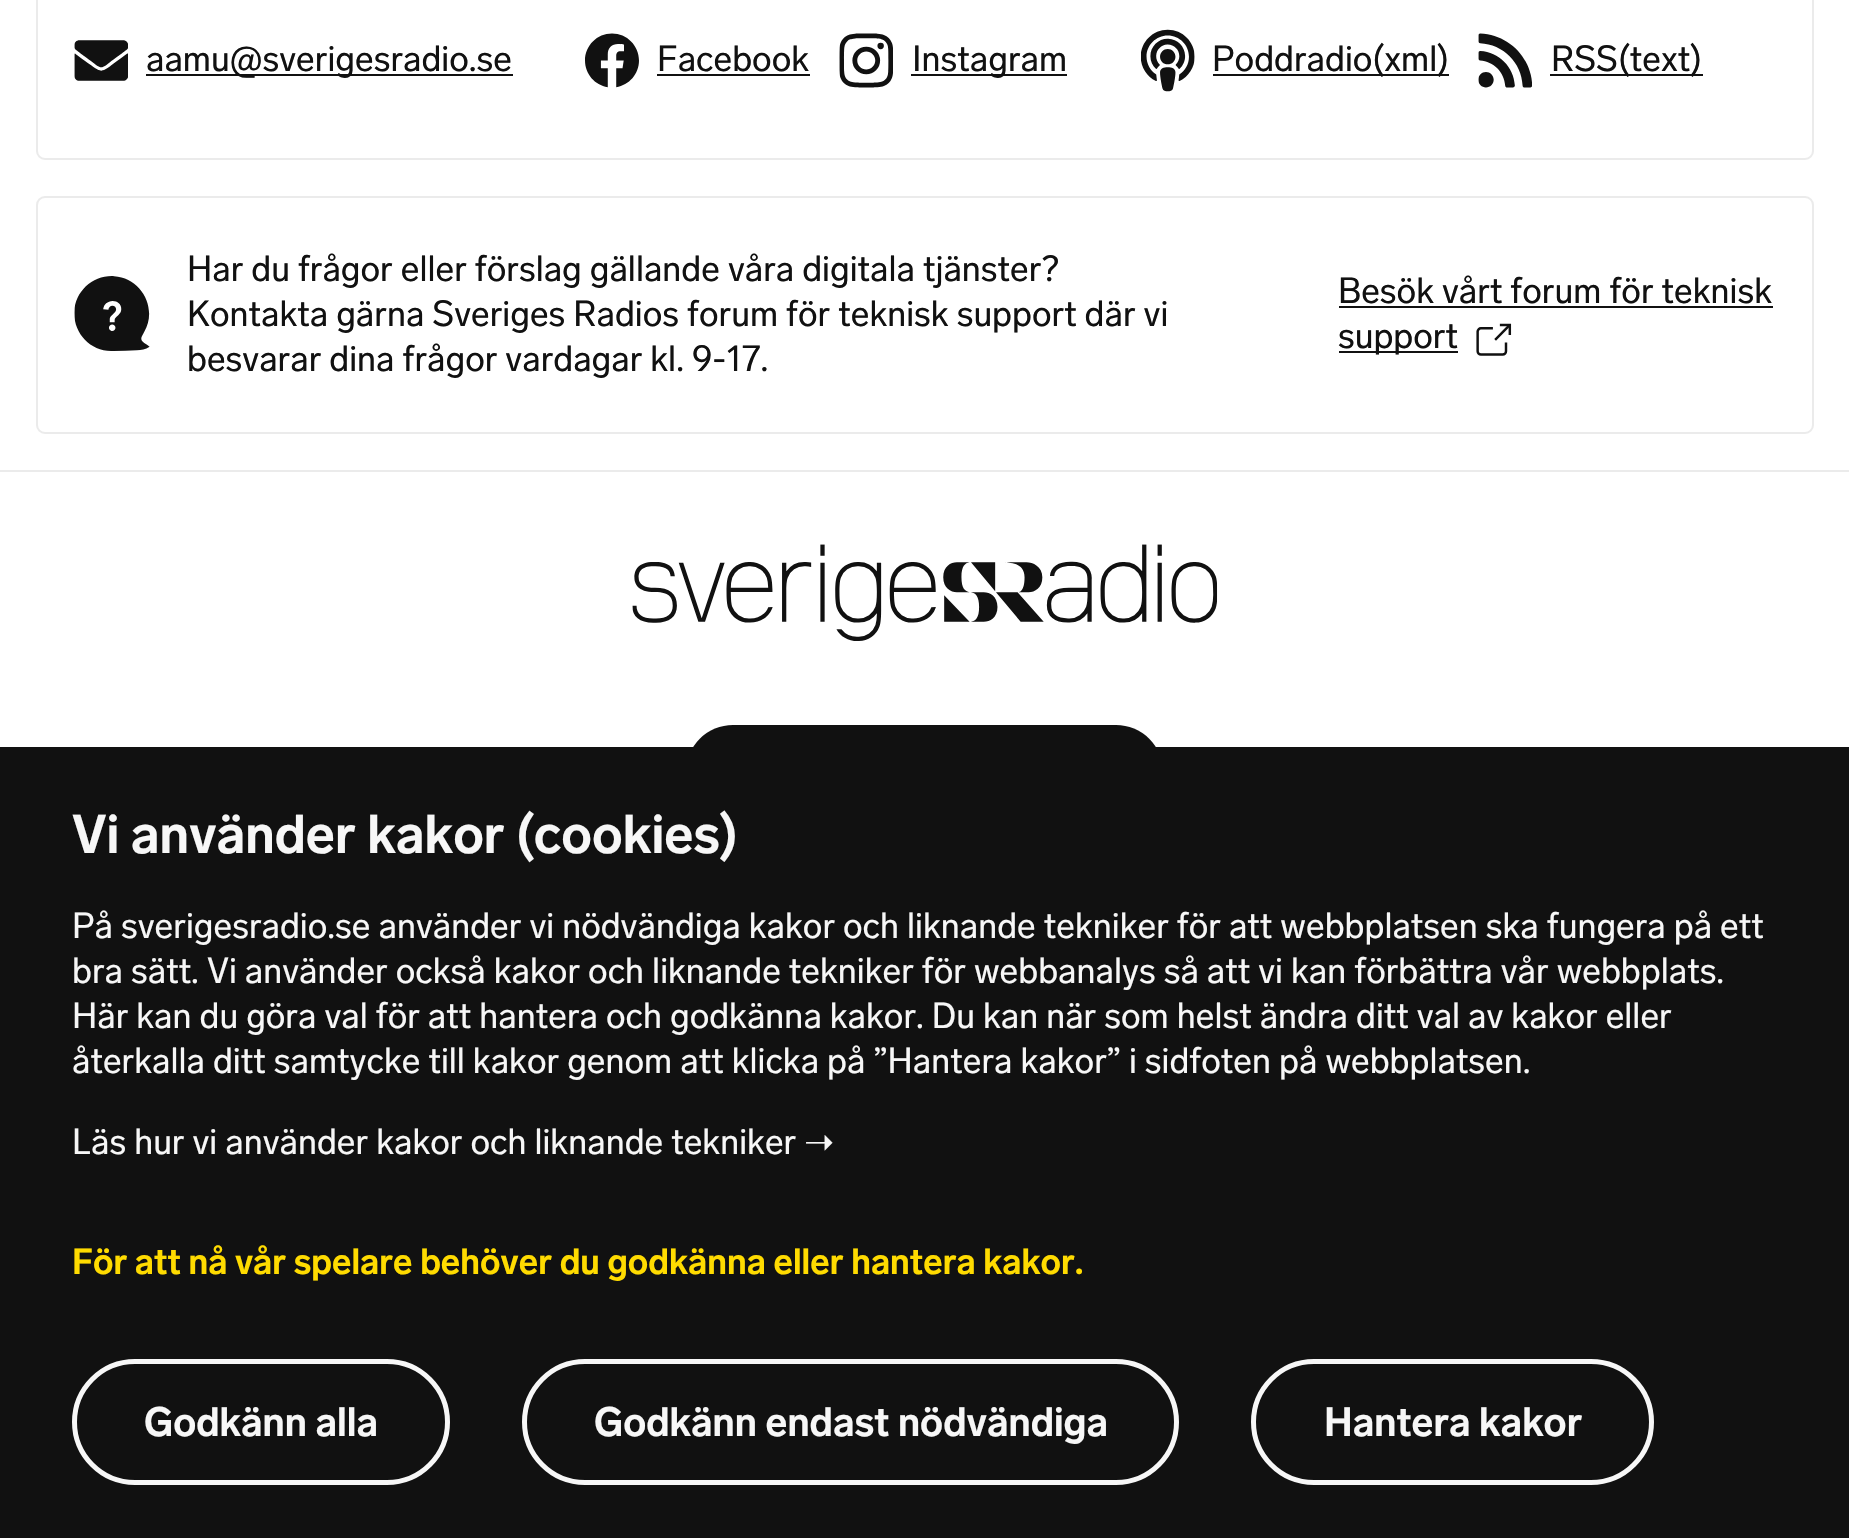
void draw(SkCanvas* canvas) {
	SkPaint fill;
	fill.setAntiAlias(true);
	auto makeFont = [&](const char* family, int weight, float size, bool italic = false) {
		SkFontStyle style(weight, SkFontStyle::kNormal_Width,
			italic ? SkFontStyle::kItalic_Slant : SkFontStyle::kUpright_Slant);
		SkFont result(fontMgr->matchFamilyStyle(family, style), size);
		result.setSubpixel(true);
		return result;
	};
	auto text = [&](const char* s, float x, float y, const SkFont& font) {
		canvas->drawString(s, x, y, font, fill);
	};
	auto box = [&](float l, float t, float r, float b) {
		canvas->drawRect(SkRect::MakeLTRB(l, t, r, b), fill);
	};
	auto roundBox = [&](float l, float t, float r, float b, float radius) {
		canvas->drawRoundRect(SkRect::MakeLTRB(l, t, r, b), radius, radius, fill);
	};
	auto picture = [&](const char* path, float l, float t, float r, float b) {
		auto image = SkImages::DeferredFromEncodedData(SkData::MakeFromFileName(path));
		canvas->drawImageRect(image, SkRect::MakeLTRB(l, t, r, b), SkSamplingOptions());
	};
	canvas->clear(0xFFFFFFFF);
	fill.setStyle(SkPaint::kStroke_Style);
	fill.setStrokeWidth(2);
	fill.setColor(0xFFEBEBEB);
	canvas->drawRoundRect(SkRect::MakeLTRB(37, -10, 1813, 159), 8, 8, fill);
	picture("image0.png", 74, 40, 128, 81);
	fill.setStyle(SkPaint::kFill_Style);
	fill.setColor(0xFF111111);
	box(146, 74, 513, 76);
	picture("image1.png", 585, 33, 639, 88);
	box(657, 74, 810, 76);
	picture("image2.png", 839, 33, 893, 88);
	box(911, 74, 1067, 76);
	picture("image3.png", 1141, 29, 1195, 92);
	box(1213, 74, 1449, 76);
	picture("image4.png", 1478, 33, 1532, 88);
	box(1550, 74, 1703, 76);
	fill.setStyle(SkPaint::kStroke_Style);
	fill.setColor(0xFFEBEBEB);
	canvas->drawRoundRect(SkRect::MakeLTRB(37, 197, 1813, 433), 8, 8, fill);
	picture("image5.png", 74, 276, 150, 351);
	fill.setStyle(SkPaint::kFill_Style);
	fill.setColor(0xFF111111);
	box(1339, 306, 1773, 308);
	box(1339, 351, 1458, 353);
	picture("image6.png", 1476, 323, 1512, 356);
	fill.setColor(0xFFEBEBEB);
	box(0, 470, 1849, 472);
	picture("image7.png", 632, 544, 1218, 641);
	fill.setColor(0xFF111111);
	roundBox(686, 725, 1163, 819, 47);
	box(0, 747, 1849, 1538);
	fill.setStyle(SkPaint::kStroke_Style);
	fill.setStrokeWidth(5);
	fill.setColor(0xFFF7F7F7);
	canvas->drawRoundRect(SkRect::MakeLTRB(74.5f, 1361.5f, 447.5f, 1482.5f), 60.5f, 60.5f, fill);
	canvas->drawRoundRect(SkRect::MakeLTRB(524.5f, 1361.5f, 1176.5f, 1482.5f), 60.5f, 60.5f, fill);
	canvas->drawRoundRect(SkRect::MakeLTRB(1253.5f, 1361.5f, 1651.5f, 1482.5f), 60.5f, 60.5f, fill);
	auto font1 = makeFont("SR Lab", 400, 36);
	fill.setStyle(SkPaint::kFill_Style);
	fill.setColor(0xFF111111);
	text("aamu@sverigesradio.se", 146, 71, font1);
	text("Facebook", 657, 71, font1);
	text("Instagram", 912, 71, font1);
	text("Poddradio(xml)", 1212, 71, font1);
	text("RSS(text)", 1551, 71, font1);
	text("Har du frågor eller förslag gällande våra digitala tjänster?", 187, 281, font1);
	text("Kontakta gärna Sveriges Radios forum för teknisk support där vi", 187, 326, font1);
	text("besvarar dina frågor vardagar kl. 9-17.", 187, 371, font1);
	text("Besök vårt forum för teknisk", 1338, 303, font1);
	text("support", 1338, 348, font1);
	auto font2 = makeFont("SR Lab", 600, 54);
	fill.setColor(0xFFF7F7F7);
	text("Vi använder kakor (cookies)", 72, 853, font2);
	text("På sverigesradio.se använder vi nödvändiga kakor och liknande tekniker för att webbplatsen ska fungera på ett", 72, 938, font1);
	text("bra sätt. Vi använder också kakor och liknande tekniker för webbanalys så att vi kan förbättra vår webbplats.", 72, 983, font1);
	text("Här kan du göra val för att hantera och godkänna kakor. Du kan när som helst ändra ditt val av kakor eller", 72, 1028, font1);
	text("återkalla ditt samtycke till kakor genom att klicka på ”Hantera kakor” i sidfoten på webbplatsen.", 72, 1073, font1);
	text("Läs hur vi använder kakor och liknande tekniker", 72, 1154, font1);
	auto font3 = makeFont("DejaVu Sans", 400, 36);
	text("➝", 804, 1154, font3);
	auto font4 = makeFont("SR Lab", 600, 36);
	fill.setColor(0xFFFFDB00);
	text("För att nå vår spelare behöver du godkänna eller hantera kakor.", 72, 1274, font4);
	auto font5 = makeFont("SR Lab", 600, 40.5f);
	fill.setColor(0xFFF7F7F7);
	text("Godkänn alla", 144, 1436, font5);
	text("Godkänn endast nödvändiga", 594, 1436, font5);
	text("Hantera kakor", 1324, 1436, font5);
}
